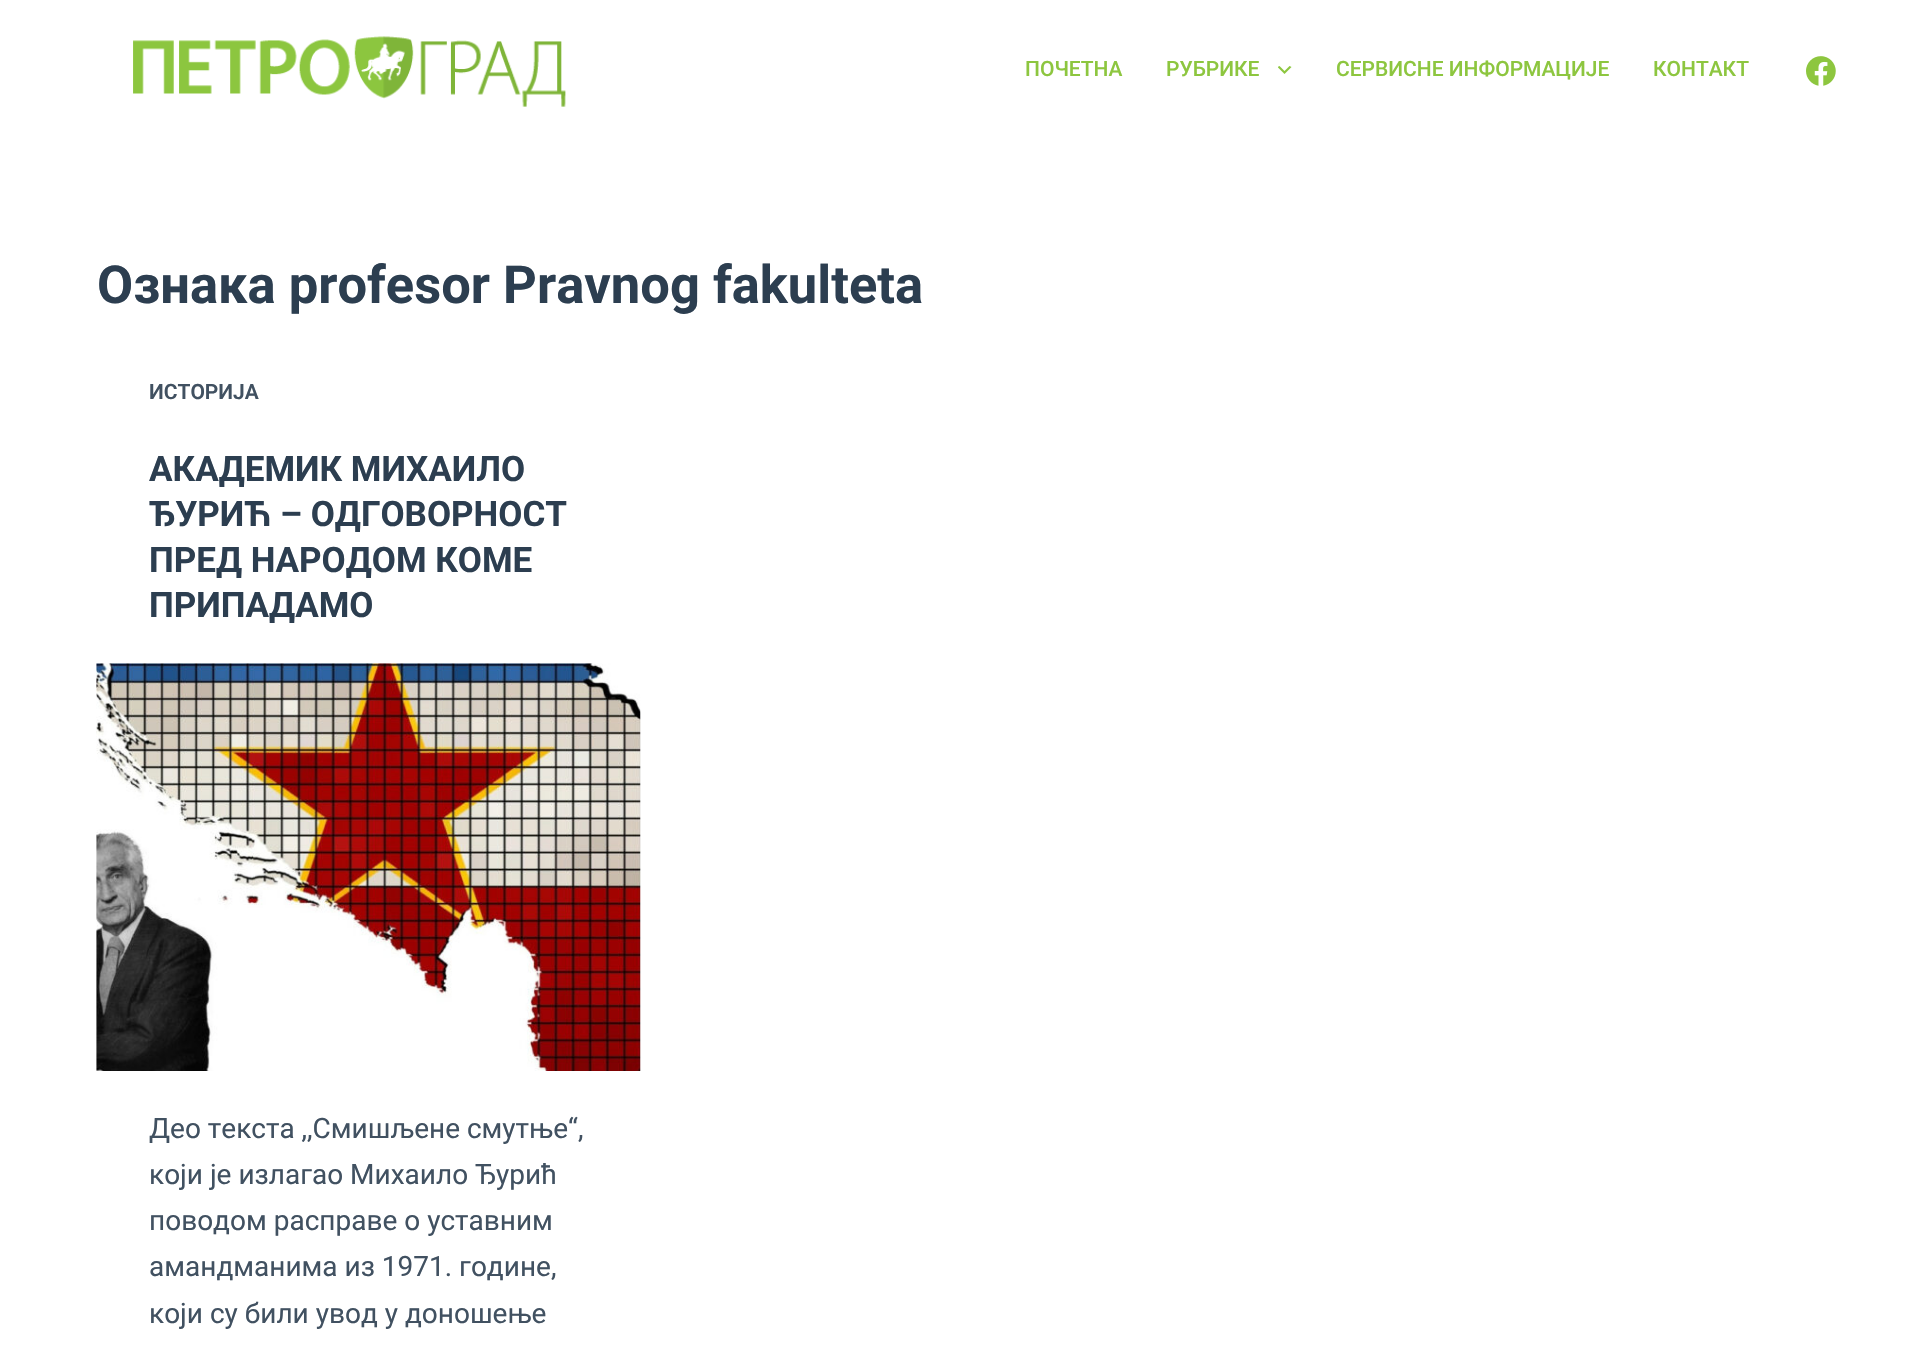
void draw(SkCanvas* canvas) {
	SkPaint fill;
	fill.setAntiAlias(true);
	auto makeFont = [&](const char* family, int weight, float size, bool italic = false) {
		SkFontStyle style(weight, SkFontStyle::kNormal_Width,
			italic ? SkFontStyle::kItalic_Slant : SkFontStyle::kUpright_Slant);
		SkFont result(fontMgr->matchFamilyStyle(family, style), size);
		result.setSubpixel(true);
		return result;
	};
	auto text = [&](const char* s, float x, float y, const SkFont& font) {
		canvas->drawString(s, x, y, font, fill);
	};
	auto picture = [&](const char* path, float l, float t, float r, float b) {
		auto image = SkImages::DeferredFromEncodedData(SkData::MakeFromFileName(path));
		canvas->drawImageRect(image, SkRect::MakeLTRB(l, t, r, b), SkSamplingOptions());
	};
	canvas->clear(0xFFFFFFFF);
	picture("image0.png", 133, 36, 566, 107);
	picture("image1.png", 1278, 66, 1292, 74);
	picture("image2.png", 1806, 56, 1836, 86);
	picture("image3.png", 96, 663, 641, 1071);
	auto font1 = makeFont("Roboto", 500, 21);
	fill.setColor(0xFF8DC63F);
	text("ПОЧЕТНА", 1025, 76, font1);
	text("РУБРИКЕ", 1166, 76, font1);
	text("СЕРВИСНЕ ИНФОРМАЦИЈЕ", 1336, 76, font1);
	text("КОНТАКТ", 1653, 76, font1);
	auto font2 = makeFont("Roboto", 700, 52.5f);
	fill.setColor(0xFF2C3E50);
	text("Ознака profesor Pravnog fakulteta", 97, 303, font2);
	auto font3 = makeFont("Roboto", 600, 21);
	fill.setColor(0xFF415161);
	text("ИСТОРИЈА", 149, 399, font3);
	auto font4 = makeFont("Roboto", 700, 35);
	fill.setColor(0xFF2C3E50);
	text("АКАДЕМИК МИХАИЛО", 149, 481, font4);
	text("ЂУРИЋ – ОДГОВОРНОСТ", 149, 526, font4);
	text("ПРЕД НАРОДОМ КОМЕ", 149, 572, font4);
	text("ПРИПАДАМО", 149, 617, font4);
	auto font5 = makeFont("Roboto", 400, 28);
	fill.setColor(0xFF415161);
	text("Део текста ,,Смишљене смутње“,", 149, 1138, font5);
	text("који је излагао Михаило Ђурић", 149, 1184, font5);
	text("поводом расправе о уставним", 149, 1230, font5);
	text("амандманима из 1971. године,", 149, 1276, font5);
	text("који су били увод у доношење", 149, 1323, font5);
}
